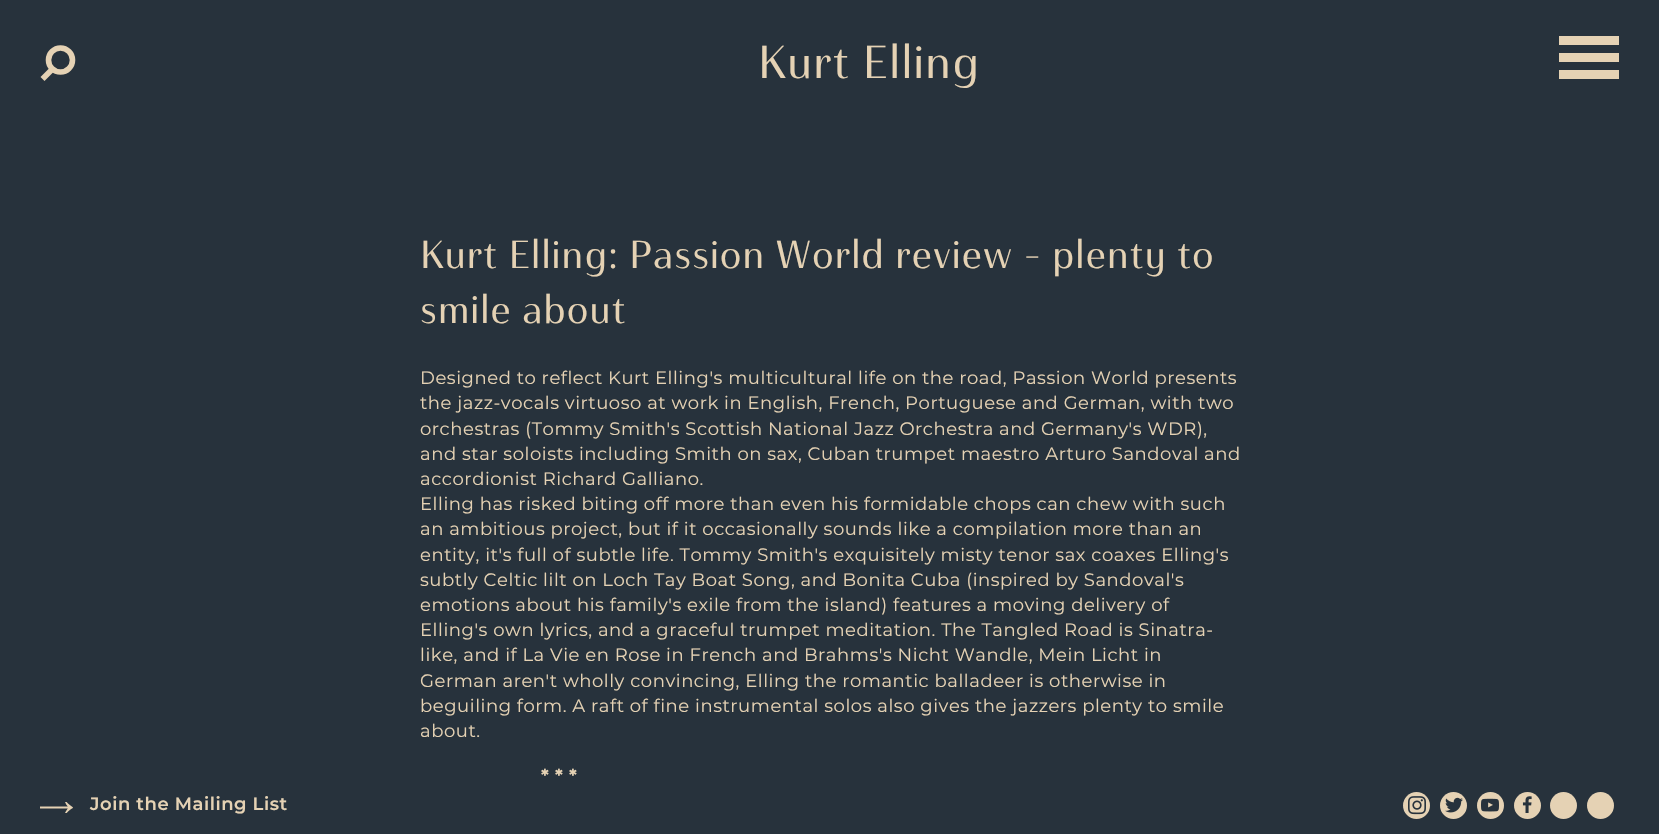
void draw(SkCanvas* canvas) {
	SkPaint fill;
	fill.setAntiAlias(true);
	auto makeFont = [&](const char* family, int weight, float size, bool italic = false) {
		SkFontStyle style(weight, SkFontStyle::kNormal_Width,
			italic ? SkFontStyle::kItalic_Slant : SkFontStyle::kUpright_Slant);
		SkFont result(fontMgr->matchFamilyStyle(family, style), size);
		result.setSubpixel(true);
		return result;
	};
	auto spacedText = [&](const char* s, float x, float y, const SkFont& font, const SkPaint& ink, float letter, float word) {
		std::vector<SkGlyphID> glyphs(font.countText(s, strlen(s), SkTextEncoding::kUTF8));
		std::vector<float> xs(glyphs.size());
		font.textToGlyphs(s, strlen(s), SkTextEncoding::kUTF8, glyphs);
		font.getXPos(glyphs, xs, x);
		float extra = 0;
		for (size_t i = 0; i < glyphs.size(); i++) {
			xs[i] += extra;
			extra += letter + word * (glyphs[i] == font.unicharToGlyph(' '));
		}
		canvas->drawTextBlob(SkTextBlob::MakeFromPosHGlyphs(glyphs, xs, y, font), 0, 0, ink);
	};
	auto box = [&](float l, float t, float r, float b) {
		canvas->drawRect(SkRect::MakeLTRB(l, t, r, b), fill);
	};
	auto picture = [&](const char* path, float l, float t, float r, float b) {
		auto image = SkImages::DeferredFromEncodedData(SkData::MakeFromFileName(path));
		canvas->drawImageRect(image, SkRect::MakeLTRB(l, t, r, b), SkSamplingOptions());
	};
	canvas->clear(0xFF27323C);
	fill.setStyle(SkPaint::kStroke_Style);
	fill.setStrokeWidth(5.6f);
	fill.setColor(0xFFE5D2B4);
	canvas->drawCircle(60.5f, 60, 12, fill);
	canvas->drawPath(SkPathBuilder().moveTo(52, 69.5f).lineTo(42.5f, 79).detach(), fill);
	fill.setStyle(SkPaint::kFill_Style);
	box(1559, 53, 1619, 62);
	box(1559, 36, 1619, 45);
	box(1559, 70, 1619, 79);
	picture("image0.png", 40, 802, 73, 813);
	canvas->drawCircle(1416.5f, 805.5f, 13.5f, fill);
	picture("image1.png", 1408, 796, 1426, 815);
	canvas->drawCircle(1453.5f, 805.5f, 13.5f, fill);
	picture("image2.png", 1445, 797, 1463, 813);
	canvas->drawCircle(1490.5f, 805.5f, 13.5f, fill);
	picture("image3.png", 1481, 798, 1499, 812);
	canvas->drawCircle(1527.5f, 805.5f, 13.5f, fill);
	picture("image4.png", 1522, 796, 1532, 813);
	canvas->drawCircle(1563.5f, 805.5f, 13.5f, fill);
	canvas->drawCircle(1600.5f, 805.5f, 13.5f, fill);
	auto font1 = makeFont("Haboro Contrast", 500, 46);
	spacedText("Kurt Elling", 758, 78, font1, fill, 1.4f, 0);
	auto font2 = makeFont("Haboro Contrast", 500, 39);
	spacedText("Kurt Elling: Passion World review – plenty to", 420, 268, font2, fill, 1.15f, 0);
	spacedText("smile about", 420, 323, font2, fill, 1.15f, 0);
	auto font3 = makeFont("Montserrat", 400, 18);
	spacedText("Designed to reflect Kurt Elling's multicultural life on the road, Passion World presents", 420, 384, font3, fill, 0.55f, 0);
	spacedText("the jazz-vocals virtuoso at work in English, French, Portuguese and German, with two", 420, 409, font3, fill, 0.55f, 0);
	spacedText("orchestras (Tommy Smith's Scottish National Jazz Orchestra and Germany's WDR),", 420, 435, font3, fill, 0.55f, 0);
	spacedText("and star soloists including Smith on sax, Cuban trumpet maestro Arturo Sandoval and", 420, 460, font3, fill, 0.55f, 0);
	spacedText("accordionist Richard Galliano.", 420, 485, font3, fill, 0.55f, 0);
	spacedText("Elling has risked biting off more than even his formidable chops can chew with such", 420, 510, font3, fill, 0.55f, 0);
	spacedText("an ambitious project, but if it occasionally sounds like a compilation more than an", 420, 535, font3, fill, 0.55f, 0);
	spacedText("entity, it's full of subtle life. Tommy Smith's exquisitely misty tenor sax coaxes Elling's", 420, 561, font3, fill, 0.55f, 0);
	spacedText("subtly Celtic lilt on Loch Tay Boat Song, and Bonita Cuba (inspired by Sandoval's", 420, 586, font3, fill, 0.55f, 0);
	spacedText("emotions about his family's exile from the island) features a moving delivery of", 420, 611, font3, fill, 0.55f, 0);
	spacedText("Elling's own lyrics, and a graceful trumpet meditation. The Tangled Road is Sinatra-", 420, 636, font3, fill, 0.55f, 0);
	spacedText("like, and if La Vie en Rose in French and Brahms's Nicht Wandle, Mein Licht in", 420, 661, font3, fill, 0.55f, 0);
	spacedText("German aren't wholly convincing, Elling the romantic balladeer is otherwise in", 420, 687, font3, fill, 0.55f, 0);
	spacedText("beguiling form. A raft of fine instrumental solos also gives the jazzers plenty to smile", 420, 712, font3, fill, 0.55f, 0);
	spacedText("about.", 420, 737, font3, fill, 0.55f, 0);
	auto font4 = makeFont("Montserrat", 700, 18);
	spacedText("* * *", 541, 782, font4, fill, 0.55f, 0);
	auto font5 = makeFont("Montserrat", 600, 18);
	spacedText("Join the Mailing List", 90, 810, font5, fill, 0.55f, 0);
}
